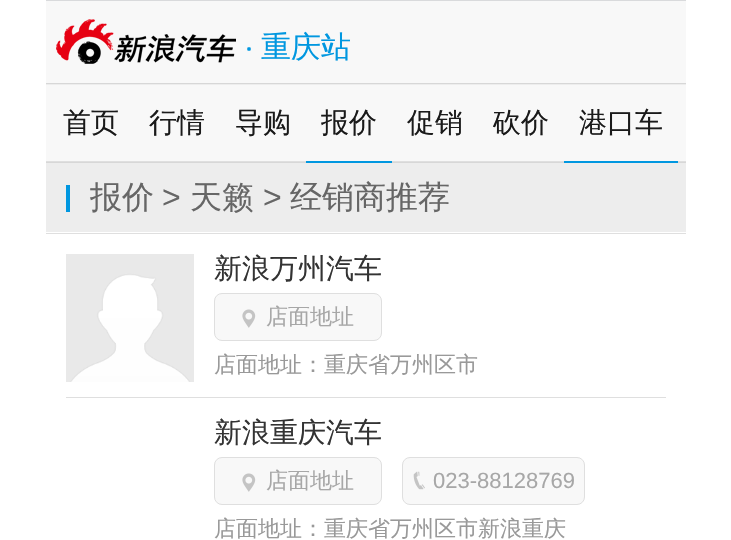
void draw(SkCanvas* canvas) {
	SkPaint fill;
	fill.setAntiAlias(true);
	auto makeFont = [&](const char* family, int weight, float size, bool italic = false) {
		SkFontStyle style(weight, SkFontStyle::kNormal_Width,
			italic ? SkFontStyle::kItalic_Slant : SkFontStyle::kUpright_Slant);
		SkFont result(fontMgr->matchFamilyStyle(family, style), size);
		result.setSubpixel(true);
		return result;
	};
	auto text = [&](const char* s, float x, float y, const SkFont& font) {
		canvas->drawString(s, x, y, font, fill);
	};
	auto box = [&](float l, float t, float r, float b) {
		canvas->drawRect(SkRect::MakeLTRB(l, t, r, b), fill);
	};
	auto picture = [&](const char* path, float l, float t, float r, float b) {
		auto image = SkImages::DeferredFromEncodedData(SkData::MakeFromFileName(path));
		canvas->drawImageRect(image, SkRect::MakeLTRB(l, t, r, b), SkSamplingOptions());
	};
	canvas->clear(0xFFFFFFFF);
	fill.setColor(0xFFD9DADC);
	box(46, 0, 686, 1);
	fill.setColor(0xFFF8F8F8);
	box(46, 1, 686, 83);
	fill.setColor(0xFFD7D7D7);
	box(46, 83, 686, 84);
	picture("image0.png", 56, 19, 251, 64);
	fill.setColor(0xFFF8F8F8);
	box(46, 85, 686, 161);
	fill.setColor(0xFFEDEDED);
	box(46, 84, 686, 85);
	fill.setColor(0xFFD7D7D7);
	box(46, 162, 686, 163);
	fill.setColor(0xFFDFDFDF);
	box(46, 161, 686, 162);
	fill.setColor(0xFF0097E0);
	box(306, 161, 392, 163);
	box(564, 161, 678, 163);
	fill.setColor(0xFFDFDFDF);
	box(46, 233, 686, 234);
	fill.setColor(0xFFEDEDED);
	box(46, 163, 686, 232);
	fill.setColor(0xFF0097E0);
	box(66, 185, 70, 212);
	fill.setColor(0xFFDFDFDF);
	box(66, 397, 666, 398);
	picture("image1.png", 66, 254, 194, 382);
	fill.setColor(0xFFF8F8F8);
	canvas->drawRoundRect(SkRect::MakeLTRB(214.5f, 293.5f, 381.5f, 340.5f), 7.5f, 7.5f, fill);
	fill.setStyle(SkPaint::kStroke_Style);
	fill.setStrokeWidth(1);
	fill.setColor(0xFFDFDFDF);
	canvas->drawRoundRect(SkRect::MakeLTRB(214.5f, 293.5f, 381.5f, 340.5f), 7.5f, 7.5f, fill);
	picture("image2.png", 242, 309, 256, 328);
	fill.setStyle(SkPaint::kFill_Style);
	fill.setColor(0xFFF8F8F8);
	canvas->drawRoundRect(SkRect::MakeLTRB(214.5f, 457.5f, 381.5f, 504.5f), 7.5f, 7.5f, fill);
	fill.setStyle(SkPaint::kStroke_Style);
	fill.setColor(0xFFDFDFDF);
	canvas->drawRoundRect(SkRect::MakeLTRB(214.5f, 457.5f, 381.5f, 504.5f), 7.5f, 7.5f, fill);
	picture("image2.png", 242, 473, 256, 492);
	fill.setStyle(SkPaint::kFill_Style);
	fill.setColor(0xFFF8F8F8);
	canvas->drawRoundRect(SkRect::MakeLTRB(402.5f, 457.5f, 584.5f, 504.5f), 7.5f, 7.5f, fill);
	fill.setStyle(SkPaint::kStroke_Style);
	fill.setColor(0xFFDFDFDF);
	canvas->drawRoundRect(SkRect::MakeLTRB(402.5f, 457.5f, 584.5f, 504.5f), 7.5f, 7.5f, fill);
	picture("image3.png", 413, 471, 425, 490);
	auto font1 = makeFont("WenQuanYi Zen Hei", 500, 30);
	fill.setStyle(SkPaint::kFill_Style);
	fill.setColor(0xFF0097E0);
	text("重庆站", 261, 57, font1);
	auto font2 = makeFont("WenQuanYi Zen Hei", 500, 28);
	fill.setColor(0xFF1A1A1A);
	text("首页", 63, 132, font2);
	text("行情", 149, 132, font2);
	text("导购", 235, 132, font2);
	text("报价", 321, 132, font2);
	text("促销", 407, 132, font2);
	text("砍价", 493, 132, font2);
	text("港口车", 579, 132, font2);
	auto font3 = makeFont("WenQuanYi Zen Hei", 500, 32);
	fill.setColor(0xFF666666);
	text("报价", 90, 208, font3);
	auto font4 = makeFont("Liberation Sans", 400, 32);
	text(">", 162, 208, font4);
	text("天籁", 190, 208, font3);
	text(">", 263, 208, font4);
	text("经销商推荐", 290, 208, font3);
	fill.setColor(0xFF333333);
	text("新浪万州汽车", 214, 278, font2);
	auto font5 = makeFont("WenQuanYi Zen Hei", 500, 22);
	fill.setColor(0xFFA7A7A7);
	text("店面地址", 266, 324, font5);
	fill.setColor(0xFF999999);
	text("店面地址：重庆省万州区市", 214, 372, font5);
	fill.setColor(0xFF333333);
	text("新浪重庆汽车", 214, 442, font2);
	fill.setColor(0xFFA7A7A7);
	text("店面地址", 266, 488, font5);
	auto font6 = makeFont("Liberation Sans", 400, 22);
	text("023-88128769", 433, 488, font6);
	fill.setColor(0xFF999999);
	text("店面地址：重庆省万州区市新浪重庆", 214, 536, font5);
}
